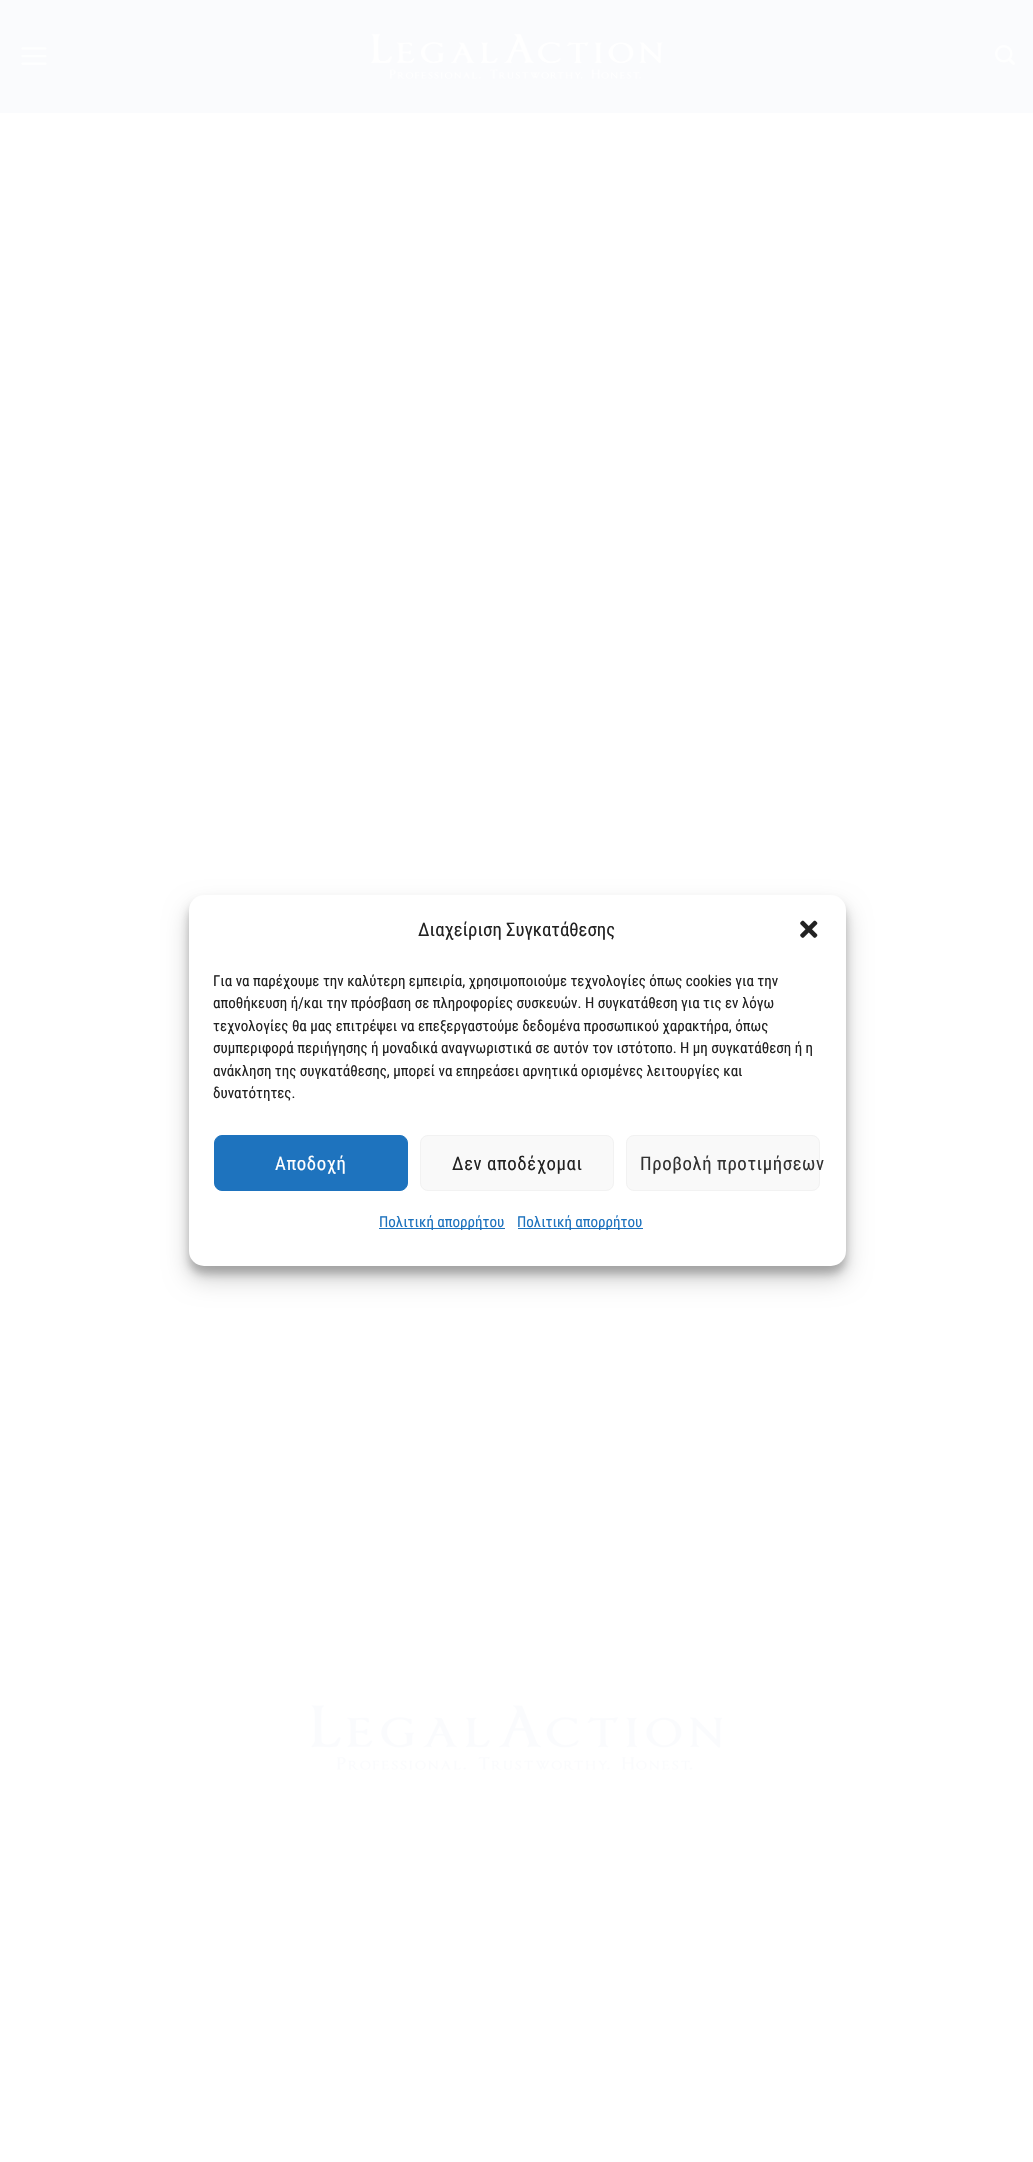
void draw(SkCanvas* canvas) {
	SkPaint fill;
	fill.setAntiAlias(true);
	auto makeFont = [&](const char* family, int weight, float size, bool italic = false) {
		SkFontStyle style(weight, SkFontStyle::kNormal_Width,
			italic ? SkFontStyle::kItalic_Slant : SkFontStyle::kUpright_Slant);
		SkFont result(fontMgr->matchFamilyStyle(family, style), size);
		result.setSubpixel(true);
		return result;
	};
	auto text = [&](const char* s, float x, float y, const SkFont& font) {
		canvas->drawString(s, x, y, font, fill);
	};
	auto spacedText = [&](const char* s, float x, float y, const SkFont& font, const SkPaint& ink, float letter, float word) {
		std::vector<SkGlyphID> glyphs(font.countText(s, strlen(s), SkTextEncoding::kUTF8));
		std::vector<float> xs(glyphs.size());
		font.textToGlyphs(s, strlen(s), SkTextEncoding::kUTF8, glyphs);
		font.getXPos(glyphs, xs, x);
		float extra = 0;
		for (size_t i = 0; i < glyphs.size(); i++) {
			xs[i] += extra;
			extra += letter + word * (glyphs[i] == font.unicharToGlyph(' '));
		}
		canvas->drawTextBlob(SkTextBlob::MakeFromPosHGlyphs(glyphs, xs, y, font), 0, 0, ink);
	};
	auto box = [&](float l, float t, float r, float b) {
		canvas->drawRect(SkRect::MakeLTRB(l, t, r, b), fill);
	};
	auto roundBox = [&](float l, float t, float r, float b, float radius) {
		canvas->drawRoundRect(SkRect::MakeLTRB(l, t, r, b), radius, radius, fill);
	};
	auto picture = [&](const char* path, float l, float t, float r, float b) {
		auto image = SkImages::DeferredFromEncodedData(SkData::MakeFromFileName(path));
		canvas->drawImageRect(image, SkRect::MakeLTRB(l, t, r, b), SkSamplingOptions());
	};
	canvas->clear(0xFFFFFFFF);
	fill.setColor(0xFFFAFBFD);
	box(0, 0, 1033, 113);
	picture("image0.png", 21, 47, 47, 65);
	picture("image1.png", 371, 33, 663, 79);
	picture("image2.png", 995, 45, 1015, 65);
	picture("image3.png", 311, 1705, 723, 1770);
	fill.setColor(0x3B000000);
	fill.setMaskFilter(SkMaskFilter::MakeBlur(kNormal_SkBlurStyle, 4));
	canvas->drawRoundRect(SkRect::MakeLTRB(189, 903, 846, 1274), 15, 15, fill);
	fill.setMaskFilter(nullptr);
	fill.setColor(0x30000000);
	fill.setMaskFilter(SkMaskFilter::MakeBlur(kNormal_SkBlurStyle, 12.5f));
	canvas->drawRoundRect(SkRect::MakeLTRB(189, 908, 846, 1279), 15, 15, fill);
	fill.setMaskFilter(nullptr);
	fill.setColor(0xFFFFFFFF);
	roundBox(189, 895, 846, 1266, 15);
	picture("image4.png", 800, 920, 818, 938);
	fill.setColor(0xFF1E73BE);
	canvas->drawRoundRect(SkRect::MakeLTRB(214.5f, 1135.5f, 407.5f, 1190.5f), 7.5f, 7.5f, fill);
	fill.setStyle(SkPaint::kStroke_Style);
	fill.setStrokeWidth(1);
	canvas->drawRoundRect(SkRect::MakeLTRB(214.5f, 1135.5f, 407.5f, 1190.5f), 7.5f, 7.5f, fill);
	fill.setStyle(SkPaint::kFill_Style);
	fill.setColor(0xFFF9F9F9);
	canvas->drawRoundRect(SkRect::MakeLTRB(420.5f, 1135.5f, 613.5f, 1190.5f), 7.5f, 7.5f, fill);
	fill.setStyle(SkPaint::kStroke_Style);
	fill.setColor(0xFFF2F2F2);
	canvas->drawRoundRect(SkRect::MakeLTRB(420.5f, 1135.5f, 613.5f, 1190.5f), 7.5f, 7.5f, fill);
	fill.setStyle(SkPaint::kFill_Style);
	fill.setColor(0xFFF9F9F9);
	canvas->drawRoundRect(SkRect::MakeLTRB(626.5f, 1135.5f, 819.5f, 1190.5f), 7.5f, 7.5f, fill);
	fill.setStyle(SkPaint::kStroke_Style);
	fill.setColor(0xFFF2F2F2);
	canvas->drawRoundRect(SkRect::MakeLTRB(626.5f, 1135.5f, 819.5f, 1190.5f), 7.5f, 7.5f, fill);
	fill.setStyle(SkPaint::kFill_Style);
	fill.setColor(0xFF1E73BE);
	box(379, 1228, 505, 1229);
	box(518, 1228, 643, 1229);
	auto font1 = makeFont("Roboto Condensed", 400, 18.75f);
	fill.setColor(0xFF222222);
	text("Διαχείριση Συγκατάθεσης", 418, 936, font1);
	auto font2 = makeFont("Roboto Condensed", 400, 15);
	text("Για να παρέχουμε την καλύτερη εμπειρία, χρησιμοποιούμε τεχνολογίες όπως cookies για την", 213, 986, font2);
	text("αποθήκευση ή/και την πρόσβαση σε πληροφορίες συσκευών. Η συγκατάθεση για τις εν λόγω", 213, 1008, font2);
	text("τεχνολογίες θα μας επιτρέψει να επεξεργαστούμε δεδομένα προσωπικού χαρακτήρα, όπως", 213, 1031, font2);
	text("συμπεριφορά περιήγησης ή μοναδικά αναγνωριστικά σε αυτόν τον ιστότοπο. Η μη συγκατάθεση ή η", 213, 1053, font2);
	text("ανάκληση της συγκατάθεσης, μπορεί να επηρεάσει αρνητικά ορισμένες λειτουργίες και", 213, 1076, font2);
	text("δυνατότητες.", 213, 1098, font2);
	fill.setColor(0xFFFFFFFF);
	spacedText("Αποδοχή", 275, 1170, font1, fill, 0.6f, 0);
	fill.setColor(0xFF222222);
	spacedText("Δεν αποδέχομαι", 452, 1170, font1, fill, 0.6f, 0);
	fill.setColor(0xFF333333);
	spacedText("Προβολή προτιμήσεων", 640, 1170, font1, fill, 0.6f, 0);
	fill.setColor(0xFF1E73BE);
	text("Πολιτική απορρήτου", 379, 1227, font2);
	text("Πολιτική απορρήτου", 517, 1227, font2);
}
